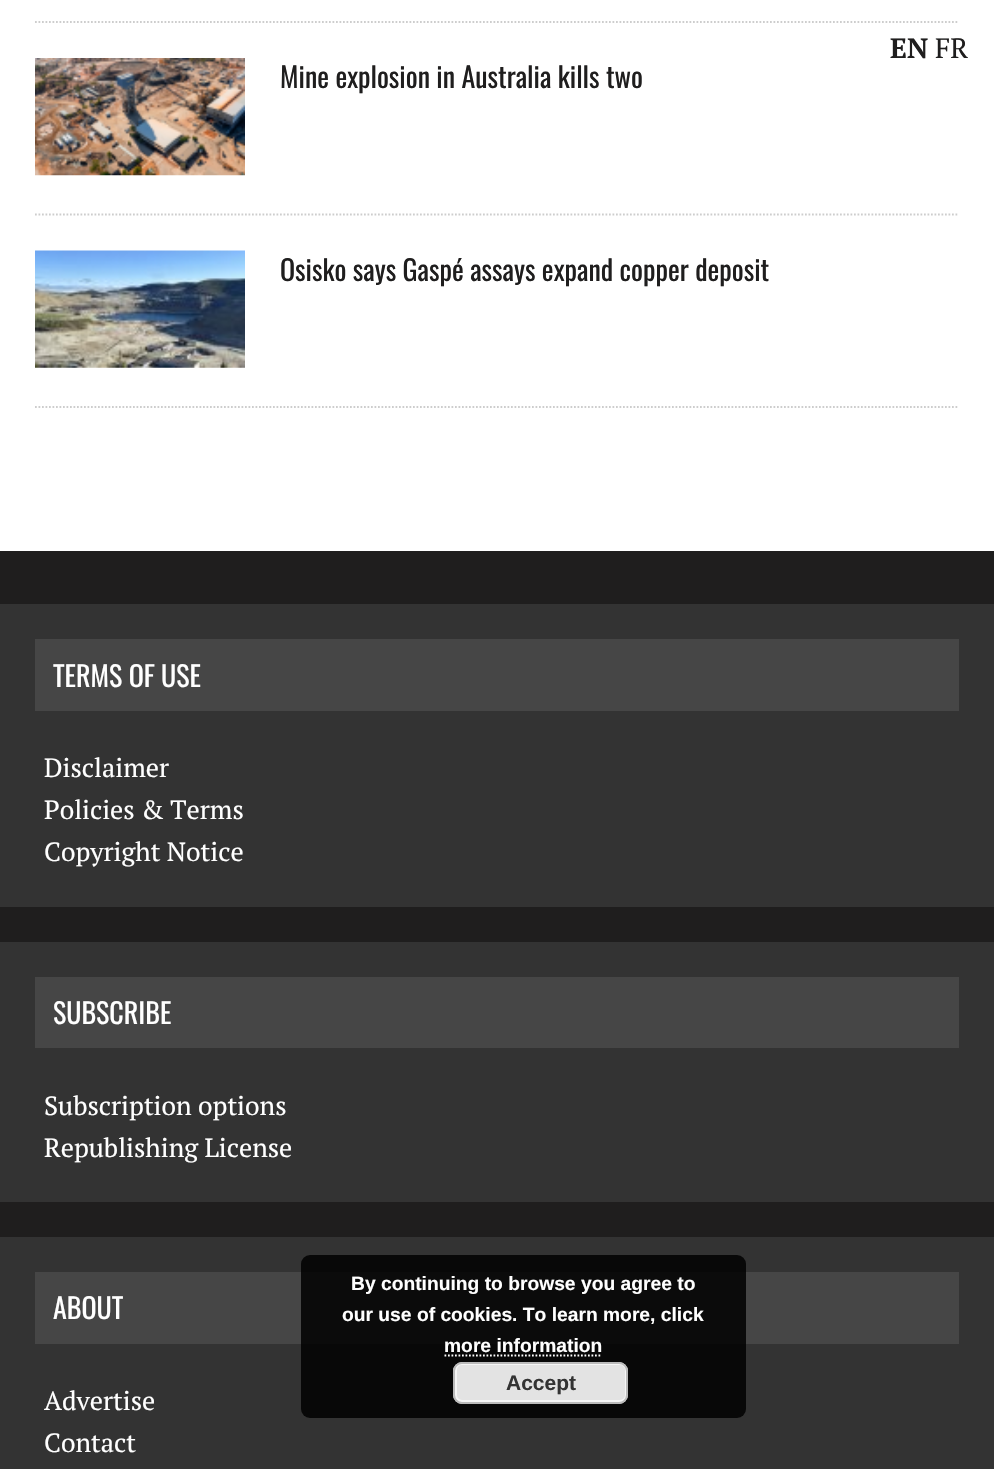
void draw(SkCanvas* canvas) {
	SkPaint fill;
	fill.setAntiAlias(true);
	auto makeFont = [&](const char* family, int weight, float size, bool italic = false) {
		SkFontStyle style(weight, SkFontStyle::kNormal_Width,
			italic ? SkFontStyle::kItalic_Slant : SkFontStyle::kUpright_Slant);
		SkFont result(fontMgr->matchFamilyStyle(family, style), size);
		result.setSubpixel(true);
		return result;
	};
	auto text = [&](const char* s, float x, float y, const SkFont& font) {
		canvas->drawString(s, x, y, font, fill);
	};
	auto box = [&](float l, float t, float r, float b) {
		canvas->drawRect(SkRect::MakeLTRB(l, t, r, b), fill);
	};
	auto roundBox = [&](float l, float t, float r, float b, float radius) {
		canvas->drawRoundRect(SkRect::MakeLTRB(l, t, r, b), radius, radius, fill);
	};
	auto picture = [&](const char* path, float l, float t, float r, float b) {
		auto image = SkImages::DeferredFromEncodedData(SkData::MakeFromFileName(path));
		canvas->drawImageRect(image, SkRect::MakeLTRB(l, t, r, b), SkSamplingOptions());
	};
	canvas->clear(0xFFFFFFFF);
	fill.setStyle(SkPaint::kStroke_Style);
	fill.setStrokeWidth(1.8f);
	fill.setColor(0xFFCDCDCD);
	fill.setPathEffect(SkDashPathEffect::Make({{1.75f, 1.75f}}, 0));
	canvas->drawPath(SkPathBuilder().moveTo(35, 22).lineTo(959, 22).detach(), fill);
	fill.setPathEffect(nullptr);
	picture("image0.png", 35, 58, 245, 176);
	fill.setPathEffect(SkDashPathEffect::Make({{1.75f, 1.75f}}, 0));
	canvas->drawPath(SkPathBuilder().moveTo(35, 214.5f).lineTo(959, 214.5f).detach(), fill);
	fill.setPathEffect(nullptr);
	picture("image1.png", 35, 250, 245, 368);
	fill.setPathEffect(SkDashPathEffect::Make({{1.75f, 1.75f}}, 0));
	canvas->drawPath(SkPathBuilder().moveTo(35, 407).lineTo(959, 407).detach(), fill);
	fill.setPathEffect(nullptr);
	fill.setStyle(SkPaint::kFill_Style);
	fill.setColor(0xFF1F1E1E);
	box(0, 551, 994, 1237);
	fill.setColor(0xFF333333);
	box(0, 604, 994, 907);
	fill.setColor(0xFF464646);
	box(35, 639, 959, 711);
	fill.setColor(0xFF333333);
	box(0, 942, 994, 1202);
	fill.setColor(0xFF464646);
	box(35, 977, 959, 1048);
	fill.setColor(0xFF333333);
	box(0, 1237, 994, 1469);
	fill.setColor(0xFF464646);
	box(35, 1272, 959, 1344);
	fill.setColor(0xD9000000);
	roundBox(301, 1255, 746, 1418, 9);
	fill.setStyle(SkPaint::kStroke_Style);
	fill.setColor(0xFFFFFFFF);
	fill.setPathEffect(SkDashPathEffect::Make({{1.75f, 1.75f}}, 0));
	canvas->drawPath(SkPathBuilder().moveTo(444.5f, 1355.5f).lineTo(602, 1355.5f).detach(), fill);
	fill.setPathEffect(nullptr);
	fill.setStyle(SkPaint::kFill_Style);
	fill.setColor(0xFFE3E3E3);
	roundBox(453, 1362, 628, 1404, 9);
	fill.setStyle(SkPaint::kStroke_Style);
	fill.setStrokeWidth(2);
	fill.setColor(0xFFF6F6F6);
	canvas->drawRoundRect(SkRect::MakeLTRB(456, 1364, 626, 1401), 6, 6, fill);
	fill.setColor(0xFFBBBBBB);
	canvas->drawRoundRect(SkRect::MakeLTRB(454, 1363, 627, 1403), 8, 8, fill);
	auto font1 = makeFont("PT Serif", 700, 28);
	fill.setStyle(SkPaint::kFill_Style);
	fill.setColor(0xFF1F1E1E);
	text("EN", 890, 58, font1);
	auto font2 = makeFont("PT Serif", 400, 28);
	text("FR", 935, 58, font2);
	auto font3 = makeFont("Oswald", 400, 28);
	text("Mine explosion in Australia kills two", 280, 88, font3);
	text("Osisko says Gaspé assays expand copper deposit", 280, 281, font3);
	fill.setColor(0xFFFFFFFF);
	text("TERMS OF USE", 53, 687, font3);
	auto font4 = makeFont("PT Serif", 400, 26.25f);
	text("Disclaimer", 44, 777, font4);
	text("Policies & Terms", 44, 819, font4);
	text("Copyright Notice", 44, 861, font4);
	text("SUBSCRIBE", 53, 1024, font3);
	text("Subscription options", 44, 1115, font4);
	text("Republishing License", 44, 1157, font4);
	text("ABOUT", 53, 1319, font3);
	text("Advertise", 44, 1410, font4);
	text("Contact", 44, 1452, font4);
	auto font5 = makeFont("Liberation Sans", 700, 19.25f);
	text("By continuing to browse you agree to", 351, 1290, font5);
	text("our use of cookies. To learn more, click", 342, 1321, font5);
	text("more information", 444, 1352, font5);
	auto font6 = makeFont("Liberation Sans", 700, 21);
	fill.setColor(0xFF333333);
	text("Accept", 506, 1390, font6);
}
